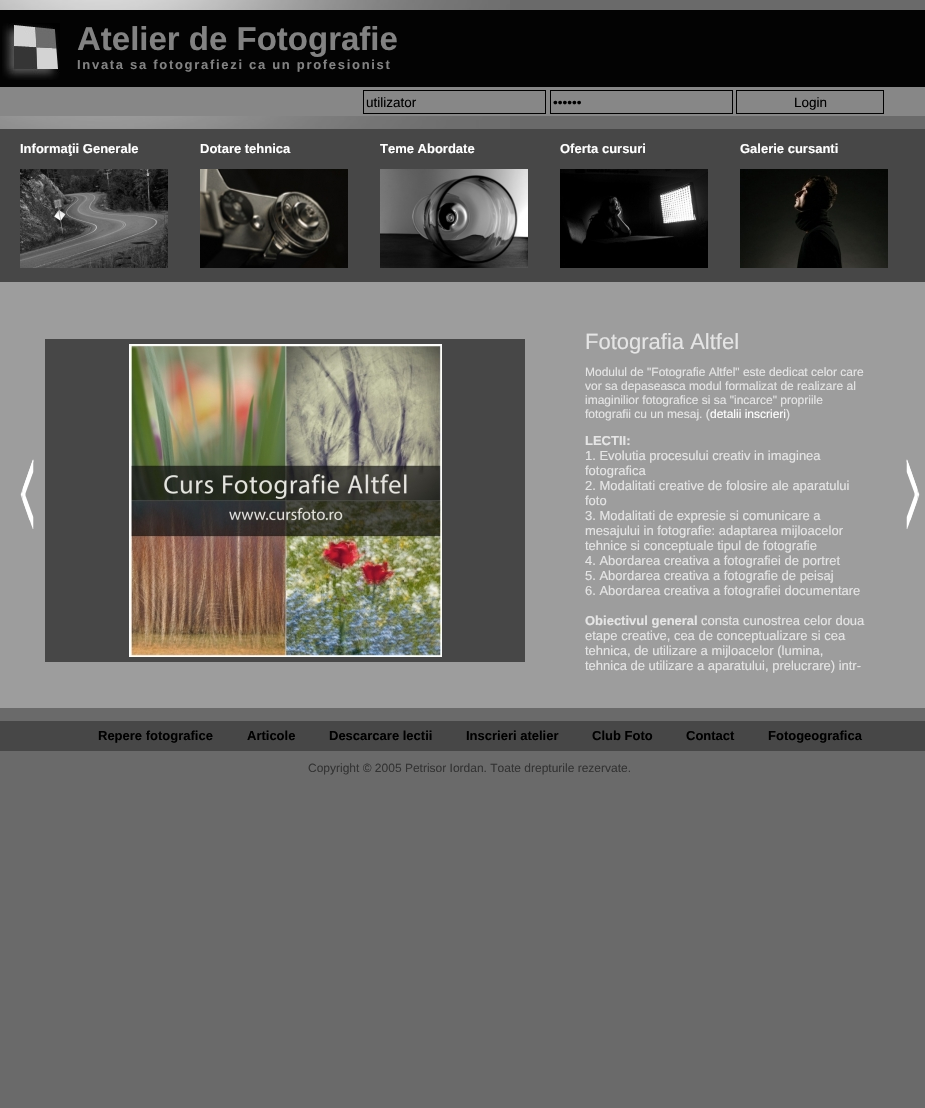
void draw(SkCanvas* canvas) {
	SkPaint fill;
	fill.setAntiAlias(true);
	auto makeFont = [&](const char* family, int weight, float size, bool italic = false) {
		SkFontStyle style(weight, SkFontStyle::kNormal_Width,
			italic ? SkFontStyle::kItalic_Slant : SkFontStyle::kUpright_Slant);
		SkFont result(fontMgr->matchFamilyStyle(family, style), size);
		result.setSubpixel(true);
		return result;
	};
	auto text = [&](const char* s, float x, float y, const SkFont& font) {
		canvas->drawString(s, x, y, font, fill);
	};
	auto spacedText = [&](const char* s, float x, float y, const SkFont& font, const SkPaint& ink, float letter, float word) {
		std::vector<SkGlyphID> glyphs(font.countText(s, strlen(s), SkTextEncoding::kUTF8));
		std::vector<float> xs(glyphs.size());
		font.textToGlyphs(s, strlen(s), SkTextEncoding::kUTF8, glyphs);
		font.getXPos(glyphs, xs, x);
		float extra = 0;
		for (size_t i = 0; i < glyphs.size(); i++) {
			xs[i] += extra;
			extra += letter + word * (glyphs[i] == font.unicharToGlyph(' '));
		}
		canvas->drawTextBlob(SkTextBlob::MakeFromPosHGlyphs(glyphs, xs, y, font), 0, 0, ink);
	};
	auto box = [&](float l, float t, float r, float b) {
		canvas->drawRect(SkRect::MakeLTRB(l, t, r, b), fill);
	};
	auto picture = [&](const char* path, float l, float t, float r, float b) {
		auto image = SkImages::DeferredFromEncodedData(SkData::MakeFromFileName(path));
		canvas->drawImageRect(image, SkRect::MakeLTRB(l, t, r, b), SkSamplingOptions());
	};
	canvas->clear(0xFF6A6A6A);
	picture("image0.png", 0, 0, 510, 129);
	picture("image1.png", 0, 10, 925, 116);
	picture("image2.png", 2, 23, 60, 80);
	fill.setStyle(SkPaint::kStroke_Style);
	fill.setStrokeWidth(1);
	fill.setColor(0xFF000000);
	canvas->drawRect(SkRect::MakeLTRB(363.5f, 90.5f, 545.5f, 113.5f), fill);
	canvas->drawRect(SkRect::MakeLTRB(550.5f, 90.5f, 732.5f, 113.5f), fill);
	canvas->drawRect(SkRect::MakeLTRB(736.5f, 90.5f, 883.5f, 113.5f), fill);
	fill.setStyle(SkPaint::kFill_Style);
	fill.setColor(0xFF9D9D9D);
	box(0, 282, 925, 708);
	fill.setColor(0xFF474747);
	box(0, 129, 925, 282);
	picture("image3.png", 20, 169, 168, 268);
	picture("image4.png", 200, 169, 348, 268);
	picture("image5.png", 380, 169, 528, 268);
	picture("image6.png", 560, 169, 708, 268);
	picture("image7.png", 740, 169, 888, 268);
	picture("image8.png", 20, 459, 34, 529);
	box(45, 339, 525, 662);
	picture("image9.png", 129, 344, 442, 657);
	picture("image10.png", 906, 459, 920, 529);
	box(0, 721, 925, 751);
	auto font1 = makeFont("Liberation Sans", 700, 33);
	fill.setColor(0xFF828282);
	text("Atelier de Fotografie", 77, 50, font1);
	auto font2 = makeFont("Liberation Sans", 700, 13);
	spacedText("Invata sa fotografiezi ca un profesionist", 77, 69, font2, fill, 1.7f, 0);
	auto font3 = makeFont("Liberation Sans", 400, 13.5f);
	fill.setColor(0xFF000000);
	text("utilizator", 366, 107, font3);
	text("••••••", 553, 107, font3);
	text("Login", 794, 107, font3);
	fill.setColor(0xFFFFFFFF);
	text("Informaţii Generale", 20, 153, font2);
	text("Dotare tehnica", 200, 153, font2);
	text("Teme Abordate", 380, 153, font2);
	text("Oferta cursuri", 560, 153, font2);
	text("Galerie cursanti", 740, 153, font2);
	auto font4 = makeFont("Liberation Sans", 400, 22);
	fill.setColor(0xFFE5E5E5);
	text("Fotografia Altfel", 585, 349, font4);
	auto font5 = makeFont("Liberation Sans", 400, 12);
	text("Modulul de \"Fotografie Altfel\" este dedicat celor care", 585, 376, font5);
	text("vor sa depaseasca modul formalizat de realizare al", 585, 390, font5);
	text("imaginilior fotografice si sa \"incarce\" propriile", 585, 404, font5);
	text("fotografii cu un mesaj. (", 585, 418, font5);
	fill.setColor(0xFFFFFFFF);
	text("detalii inscrieri", 710, 418, font5);
	fill.setColor(0xFFE5E5E5);
	text(")", 786, 418, font5);
	text("LECTII:", 585, 445, font2);
	auto font6 = makeFont("Liberation Sans", 400, 13);
	text("1. Evolutia procesului creativ in imaginea", 585, 460, font6);
	text("fotografica", 585, 475, font6);
	text("2. Modalitati creative de folosire ale aparatului", 585, 490, font6);
	text("foto", 585, 505, font6);
	text("3. Modalitati de expresie si comunicare a", 585, 520, font6);
	text("mesajului in fotografie: adaptarea mijloacelor", 585, 535, font6);
	text("tehnice si conceptuale tipul de fotografie", 585, 550, font6);
	text("4. Abordarea creativa a fotografiei de portret", 585, 565, font6);
	text("5. Abordarea creativa a fotografie de peisaj", 585, 580, font6);
	text("6. Abordarea creativa a fotografiei documentare", 585, 595, font6);
	text("Obiectivul general", 585, 625, font2);
	text("consta cunostrea celor doua", 701, 625, font6);
	text("etape creative, cea de conceptualizare si cea", 585, 640, font6);
	text("tehnica, de utilizare a mijloacelor (lumina,", 585, 655, font6);
	text("tehnica de utilizare a aparatului, prelucrare) intr-", 585, 670, font6);
	fill.setColor(0xFF000000);
	text("Repere fotografice", 98, 740, font2);
	text("Articole", 247, 740, font2);
	text("Descarcare lectii", 329, 740, font2);
	text("Inscrieri atelier", 466, 740, font2);
	text("Club Foto", 592, 740, font2);
	text("Contact", 686, 740, font2);
	text("Fotogeografica", 768, 740, font2);
	fill.setColor(0xFF333333);
	text("Copyright © 2005 Petrisor Iordan. Toate drepturile rezervate.", 308, 772, font5);
}
